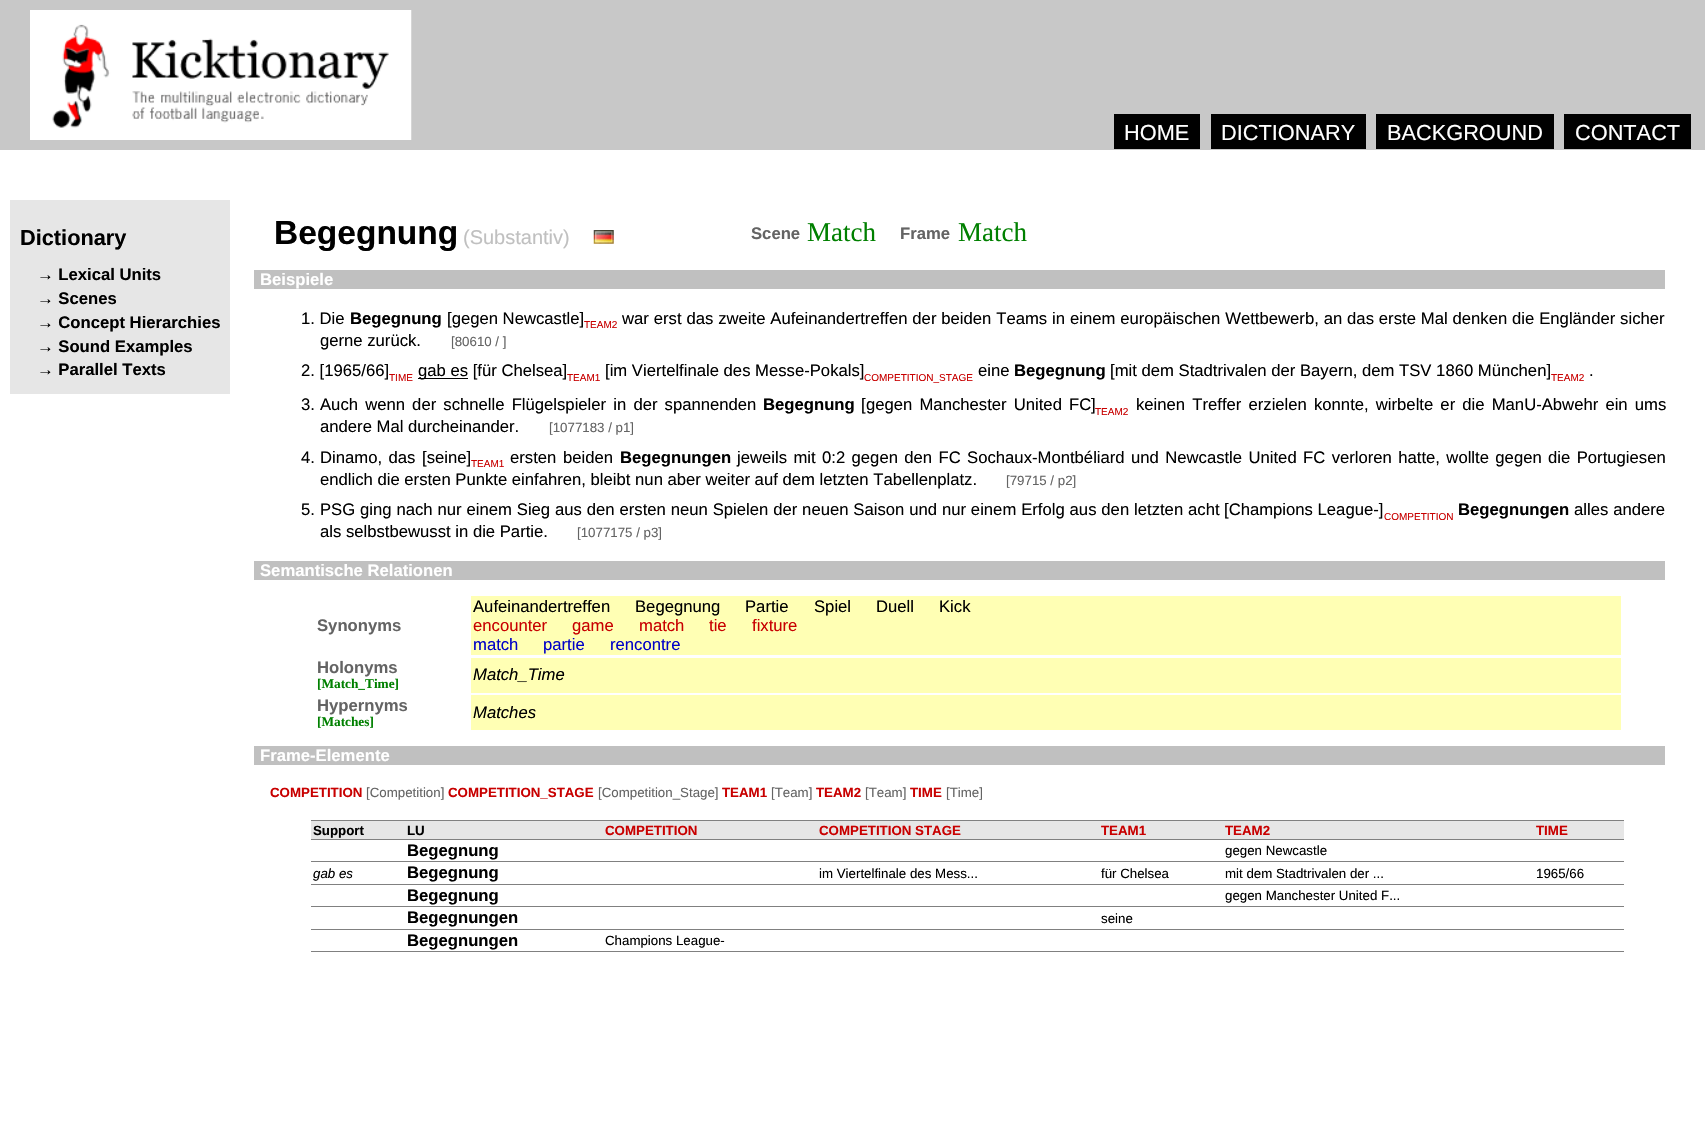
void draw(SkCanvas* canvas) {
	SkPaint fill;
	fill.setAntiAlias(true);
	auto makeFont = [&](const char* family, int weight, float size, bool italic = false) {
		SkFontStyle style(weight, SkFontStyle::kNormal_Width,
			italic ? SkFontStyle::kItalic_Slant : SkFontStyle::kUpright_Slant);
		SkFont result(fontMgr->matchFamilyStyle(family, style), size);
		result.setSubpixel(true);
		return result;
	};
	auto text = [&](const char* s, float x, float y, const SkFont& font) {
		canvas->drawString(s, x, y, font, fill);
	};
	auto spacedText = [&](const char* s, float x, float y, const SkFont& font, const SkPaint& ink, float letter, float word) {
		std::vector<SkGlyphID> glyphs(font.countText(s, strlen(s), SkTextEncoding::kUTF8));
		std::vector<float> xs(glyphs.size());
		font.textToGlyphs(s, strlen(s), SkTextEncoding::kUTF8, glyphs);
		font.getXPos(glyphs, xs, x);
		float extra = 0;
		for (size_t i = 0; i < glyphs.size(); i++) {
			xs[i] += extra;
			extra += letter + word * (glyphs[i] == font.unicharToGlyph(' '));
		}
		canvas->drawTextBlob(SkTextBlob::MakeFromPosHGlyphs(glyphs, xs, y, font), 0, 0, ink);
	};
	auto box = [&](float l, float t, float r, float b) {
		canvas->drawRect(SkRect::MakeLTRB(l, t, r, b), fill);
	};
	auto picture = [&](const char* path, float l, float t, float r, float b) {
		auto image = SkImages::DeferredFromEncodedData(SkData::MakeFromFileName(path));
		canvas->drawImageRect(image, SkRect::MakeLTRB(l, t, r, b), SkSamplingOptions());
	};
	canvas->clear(0xFFFFFFFF);
	fill.setColor(0xFFC8C8C8);
	box(0, 0, 1705, 150);
	picture("image0.png", 30, 10, 412, 140);
	fill.setColor(0xFF000000);
	box(1114, 114, 1200, 149);
	box(1211, 114, 1366, 149);
	box(1376, 114, 1554, 149);
	box(1564, 114, 1691, 149);
	fill.setColor(0xFFE6E6E6);
	box(10, 200, 230, 394);
	picture("image1.png", 593, 230, 614, 244);
	fill.setColor(0xFFC0C0C0);
	box(254, 270, 1665, 289);
	fill.setColor(0xFF000000);
	box(418, 378, 468, 379);
	fill.setColor(0xFFC0C0C0);
	box(254, 561, 1665, 580);
	fill.setColor(0xFFFFFFB4);
	box(471, 596, 1621, 655);
	box(471, 658, 1621, 693);
	box(471, 695, 1621, 730);
	fill.setColor(0xFFC0C0C0);
	box(254, 746, 1665, 765);
	fill.setColor(0xFF808080);
	box(311, 820, 1624, 821);
	box(311, 951, 1624, 952);
	fill.setColor(0xFFE6E6E6);
	box(311, 821, 1624, 839);
	fill.setColor(0xFF808080);
	box(311, 839, 1624, 840);
	box(311, 861, 1624, 862);
	box(311, 884, 1624, 885);
	box(311, 906, 1624, 907);
	box(311, 929, 1624, 930);
	auto font1 = makeFont("Liberation Sans", 400, 21.75f);
	fill.setColor(0xFFFFFFFF);
	text("HOME", 1124, 140, font1);
	text("DICTIONARY", 1221, 140, font1);
	text("BACKGROUND", 1387, 140, font1);
	text("CONTACT", 1575, 140, font1);
	auto font2 = makeFont("Liberation Sans", 700, 21.75f);
	fill.setColor(0xFF000000);
	text("Dictionary", 20, 245, font2);
	auto font3 = makeFont("Liberation Sans", 700, 16.67f);
	text("→ Lexical Units", 37, 280, font3);
	text("→ Scenes", 37, 304, font3);
	text("→ Concept Hierarchies", 37, 328, font3);
	text("→ Sound Examples", 37, 352, font3);
	text("→ Parallel Texts", 37, 375, font3);
	auto font4 = makeFont("Liberation Sans", 700, 33.5f);
	text("Begegnung", 274, 244, font4);
	auto font5 = makeFont("Liberation Sans", 400, 20);
	fill.setColor(0xFFC0C0C0);
	text("(Substantiv)", 463, 244, font5);
	fill.setColor(0xFF646464);
	text("Scene", 751, 239, font3);
	auto font6 = makeFont("Liberation Serif", 400, 27);
	fill.setColor(0xFF008000);
	text("Match", 807, 241, font6);
	fill.setColor(0xFF646464);
	text("Frame", 900, 239, font3);
	fill.setColor(0xFF008000);
	text("Match", 958, 241, font6);
	fill.setColor(0xFFFFFFFF);
	text("Beispiele", 260, 285, font3);
	auto font7 = makeFont("Liberation Sans", 400, 16.67f);
	fill.setColor(0xFF000000);
	text("1. Die", 301, 324, font7);
	text("Begegnung", 350, 324, font3);
	text("[gegen Newcastle]", 447, 324, font7);
	auto font8 = makeFont("Liberation Sans", 400, 10);
	fill.setColor(0xFFC80000);
	text("TEAM2", 584, 328, font8);
	fill.setColor(0xFF000000);
	spacedText("war erst das zweite Aufeinandertreffen der beiden Teams in einem europäischen Wettbewerb, an das erste Mal denken die Engländer sicher", 622, 324, font7, fill, 0, 0.25f);
	text("gerne zurück.", 320, 346, font7);
	auto font9 = makeFont("Liberation Sans", 400, 13.3f);
	fill.setColor(0xFF646464);
	text("[80610 / ]", 451, 346, font9);
	fill.setColor(0xFF000000);
	text("2. [1965/66]", 301, 376, font7);
	fill.setColor(0xFFC80000);
	text("TIME", 389, 381, font8);
	fill.setColor(0xFF000000);
	text("gab es [für Chelsea]", 418, 376, font7);
	fill.setColor(0xFFC80000);
	text("TEAM1", 567, 381, font8);
	fill.setColor(0xFF000000);
	text("[im Viertelfinale des Messe-Pokals]", 605, 376, font7);
	fill.setColor(0xFFC80000);
	text("COMPETITION_STAGE", 864, 381, font8);
	fill.setColor(0xFF000000);
	text("eine", 978, 376, font7);
	text("Begegnung", 1014, 376, font3);
	text("[mit dem Stadtrivalen der Bayern, dem TSV 1860 München]", 1110, 376, font7);
	fill.setColor(0xFFC80000);
	text("TEAM2", 1551, 381, font8);
	fill.setColor(0xFF000000);
	text(".", 1589, 376, font7);
	text("3.", 301, 410, font7);
	spacedText("Auch wenn der schnelle Flügelspieler in der spannenden", 320, 410, font7, fill, 0, 2.5f);
	text("Begegnung", 763, 410, font3);
	text("[", 861, 410, font7);
	spacedText("gegen Manchester United FC", 866, 410, font7, fill, 0, 2.5f);
	text("]", 1091, 410, font7);
	fill.setColor(0xFFC80000);
	text("TEAM2", 1095, 415, font8);
	fill.setColor(0xFF000000);
	spacedText("keinen Treffer erzielen konnte, wirbelte er die ManU-Abwehr ein ums", 1136, 410, font7, fill, 0, 2.5f);
	text("andere Mal durcheinander.", 320, 432, font7);
	fill.setColor(0xFF646464);
	text("[1077183 / p1]", 549, 432, font9);
	fill.setColor(0xFF000000);
	text("4.", 301, 463, font7);
	spacedText("Dinamo, das", 320, 463, font7, fill, 0, 1.75f);
	text("[seine]", 422, 463, font7);
	fill.setColor(0xFFC80000);
	text("TEAM1", 471, 467, font8);
	fill.setColor(0xFF000000);
	spacedText("ersten beiden", 510, 463, font7, fill, 0, 2);
	text("Begegnungen", 620, 463, font3);
	spacedText("jeweils mit 0:2 gegen den FC Sochaux-Montbéliard und Newcastle United FC verloren hatte, wollte gegen die Portugiesen", 737, 463, font7, fill, 0, 1.75f);
	text("endlich die ersten Punkte einfahren, bleibt nun aber weiter auf dem letzten Tabellenplatz.", 320, 485, font7);
	fill.setColor(0xFF646464);
	text("[79715 / p2]", 1006, 485, font9);
	fill.setColor(0xFF000000);
	text("5.", 301, 515, font7);
	spacedText("PSG ging nach nur einem Sieg aus den ersten neun Spielen der neuen Saison und nur einem Erfolg aus den letzten acht", 320, 515, font7, fill, 0, 0.25f);
	text("[Champions League-]", 1224, 515, font7);
	fill.setColor(0xFFC80000);
	text("COMPETITION", 1384, 520, font8);
	fill.setColor(0xFF000000);
	text("Begegnungen", 1458, 515, font3);
	spacedText("alles andere", 1574, 515, font7, fill, 0, 0.25f);
	text("als selbstbewusst in die Partie.", 320, 537, font7);
	fill.setColor(0xFF646464);
	text("[1077175 / p3]", 577, 537, font9);
	fill.setColor(0xFFFFFFFF);
	text("Semantische Relationen", 260, 576, font3);
	fill.setColor(0xFF646464);
	text("Synonyms", 317, 631, font3);
	fill.setColor(0xFF000000);
	text("Aufeinandertreffen", 473, 612, font7);
	text("Begegnung", 635, 612, font7);
	text("Partie", 745, 612, font7);
	text("Spiel", 814, 612, font7);
	text("Duell", 876, 612, font7);
	text("Kick", 939, 612, font7);
	fill.setColor(0xFFC80000);
	text("encounter", 473, 631, font7);
	text("game", 572, 631, font7);
	text("match", 639, 631, font7);
	text("tie", 709, 631, font7);
	text("fixture", 752, 631, font7);
	fill.setColor(0xFF0000C8);
	text("match", 473, 650, font7);
	text("partie", 543, 650, font7);
	text("rencontre", 610, 650, font7);
	fill.setColor(0xFF646464);
	text("Holonyms", 317, 673, font3);
	auto font10 = makeFont("Liberation Serif", 700, 13.3f);
	fill.setColor(0xFF008000);
	text("[Match_Time]", 317, 688, font10);
	auto font11 = makeFont("Liberation Sans", 400, 16.67f, true);
	fill.setColor(0xFF000000);
	text("Match_Time", 473, 680, font11);
	fill.setColor(0xFF646464);
	text("Hypernyms", 317, 711, font3);
	fill.setColor(0xFF008000);
	text("[Matches]", 317, 726, font10);
	fill.setColor(0xFF000000);
	text("Matches", 473, 718, font11);
	fill.setColor(0xFFFFFFFF);
	text("Frame-Elemente", 260, 761, font3);
	auto font12 = makeFont("Liberation Sans", 700, 13.3f);
	fill.setColor(0xFFC80000);
	text("COMPETITION", 270, 797, font12);
	fill.setColor(0xFF646464);
	text("[Competition]", 366, 797, font9);
	fill.setColor(0xFFC80000);
	text("COMPETITION_STAGE", 448, 797, font12);
	fill.setColor(0xFF646464);
	text("[Competition_Stage]", 598, 797, font9);
	fill.setColor(0xFFC80000);
	text("TEAM1", 722, 797, font12);
	fill.setColor(0xFF646464);
	text("[Team]", 771, 797, font9);
	fill.setColor(0xFFC80000);
	text("TEAM2", 816, 797, font12);
	fill.setColor(0xFF646464);
	text("[Team]", 865, 797, font9);
	fill.setColor(0xFFC80000);
	text("TIME", 910, 797, font12);
	fill.setColor(0xFF646464);
	text("[Time]", 946, 797, font9);
	fill.setColor(0xFF000000);
	text("Support", 313, 835, font12);
	text("LU", 407, 835, font12);
	fill.setColor(0xFFC80000);
	text("COMPETITION", 605, 835, font12);
	text("COMPETITION STAGE", 819, 835, font12);
	text("TEAM1", 1101, 835, font12);
	text("TEAM2", 1225, 835, font12);
	text("TIME", 1536, 835, font12);
	fill.setColor(0xFF000000);
	text("Begegnung", 407, 856, font3);
	text("gegen Newcastle", 1225, 855, font9);
	auto font13 = makeFont("Liberation Sans", 400, 13.3f, true);
	text("gab es", 313, 878, font13);
	text("Begegnung", 407, 878, font3);
	text("im Viertelfinale des Mess...", 819, 878, font9);
	text("für Chelsea", 1101, 878, font9);
	text("mit dem Stadtrivalen der ...", 1225, 878, font9);
	text("1965/66", 1536, 878, font9);
	text("Begegnung", 407, 901, font3);
	text("gegen Manchester United F...", 1225, 900, font9);
	text("Begegnungen", 407, 923, font3);
	text("seine", 1101, 923, font9);
	text("Begegnungen", 407, 946, font3);
	text("Champions League-", 605, 945, font9);
}
